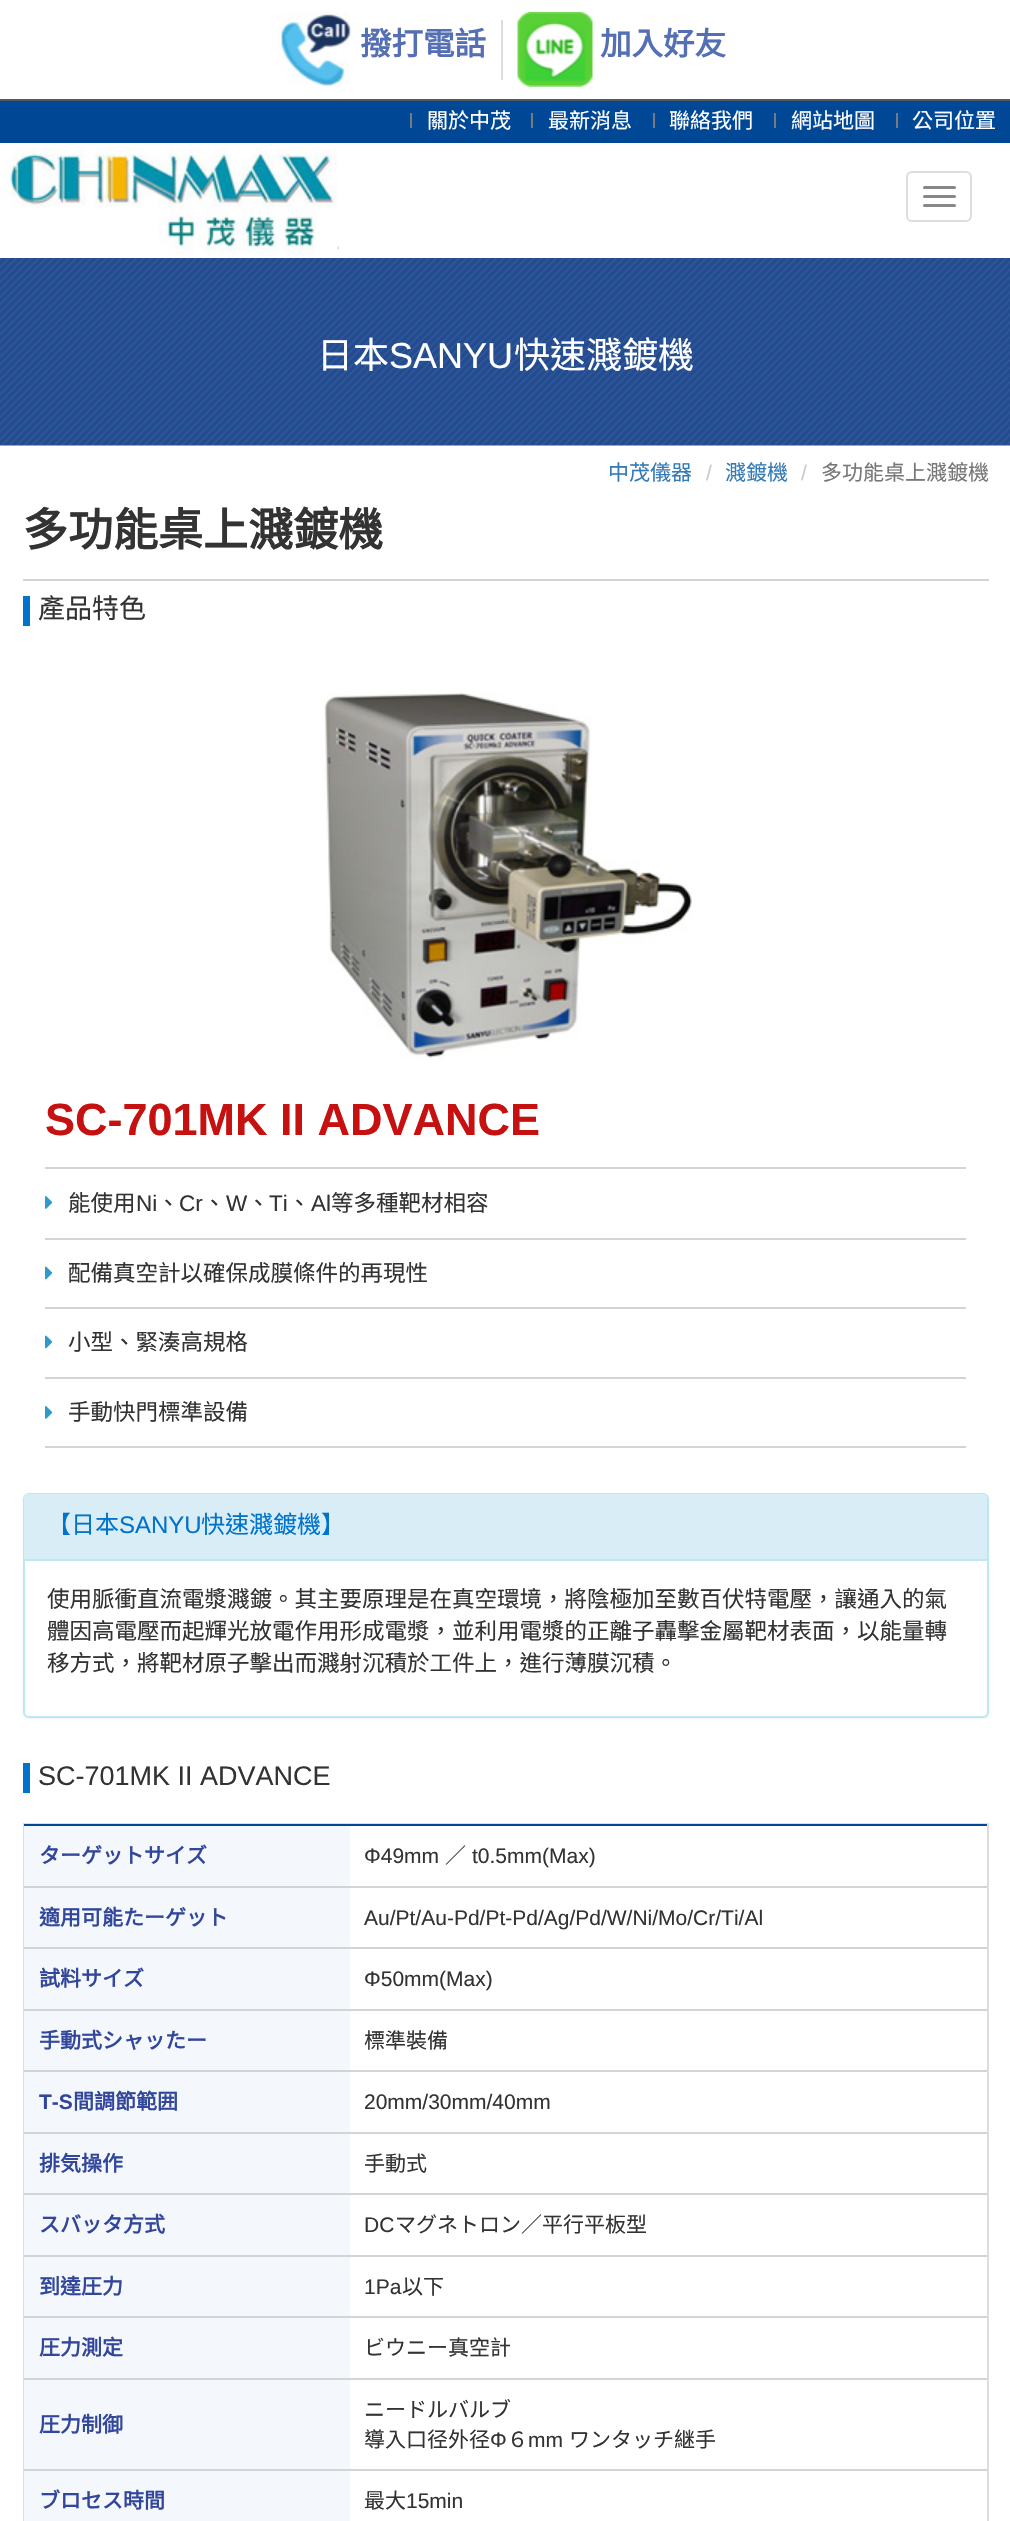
void draw(SkCanvas* canvas) {
	SkPaint fill;
	fill.setAntiAlias(true);
	auto makeFont = [&](const char* family, int weight, float size, bool italic = false) {
		SkFontStyle style(weight, SkFontStyle::kNormal_Width,
			italic ? SkFontStyle::kItalic_Slant : SkFontStyle::kUpright_Slant);
		SkFont result(fontMgr->matchFamilyStyle(family, style), size);
		result.setSubpixel(true);
		return result;
	};
	auto text = [&](const char* s, float x, float y, const SkFont& font) {
		canvas->drawString(s, x, y, font, fill);
	};
	auto box = [&](float l, float t, float r, float b) {
		canvas->drawRect(SkRect::MakeLTRB(l, t, r, b), fill);
	};
	auto roundBox = [&](float l, float t, float r, float b, float radius) {
		canvas->drawRoundRect(SkRect::MakeLTRB(l, t, r, b), radius, radius, fill);
	};
	auto picture = [&](const char* path, float l, float t, float r, float b) {
		auto image = SkImages::DeferredFromEncodedData(SkData::MakeFromFileName(path));
		canvas->drawImageRect(image, SkRect::MakeLTRB(l, t, r, b), SkSamplingOptions());
	};
	canvas->clear(0xFFFFFFFF);
	fill.setColor(0xFF4F5B61);
	box(0, 99, 1010, 101);
	picture("image0.png", 278, 12, 351, 86);
	fill.setColor(0xFFDDDDDD);
	box(501, 20, 503, 80);
	picture("image1.png", 517, 12, 593, 87);
	fill.setColor(0xFF004795);
	box(0, 101, 1010, 143);
	fill.setColor(0xFF747C80);
	box(410, 113, 412, 128);
	box(531, 113, 533, 128);
	box(653, 113, 655, 128);
	box(774, 113, 776, 128);
	box(896, 113, 898, 128);
	picture("image2.png", 2, 147, 339, 254);
	fill.setStyle(SkPaint::kStroke_Style);
	fill.setStrokeWidth(2);
	fill.setColor(0xFFDDDDDD);
	canvas->drawRoundRect(SkRect::MakeLTRB(907, 172, 971, 221), 5, 5, fill);
	fill.setStyle(SkPaint::kFill_Style);
	fill.setColor(0xFF888888);
	roundBox(923, 186, 956, 189, 1.5f);
	roundBox(923, 195, 956, 198, 1.5f);
	roundBox(923, 204, 956, 207, 1.5f);
	picture("image3.png", 0, 258, 1010, 446);
	fill.setColor(0xFFD4D4D4);
	box(23, 579, 989, 581);
	fill.setColor(0xFF0073CB);
	box(23, 596, 30, 626);
	picture("image4.png", 324, 692, 692, 1060);
	fill.setColor(0xFFD4D4D4);
	box(45, 1167, 966, 1169);
	box(45, 1238, 966, 1240);
	picture("image5.png", 45, 1196, 53, 1209);
	box(45, 1307, 966, 1309);
	picture("image6.png", 45, 1266, 53, 1280);
	box(45, 1377, 966, 1379);
	picture("image6.png", 45, 1335, 53, 1349);
	box(45, 1446, 966, 1448);
	picture("image5.png", 45, 1406, 53, 1419);
	fill.setColor(0x0D000000);
	fill.setMaskFilter(SkMaskFilter::MakeBlur(kNormal_SkBlurStyle, 1));
	canvas->drawRoundRect(SkRect::MakeLTRB(23, 1494, 989, 1719), 6, 6, fill);
	fill.setMaskFilter(nullptr);
	fill.setColor(0xFFFFFFFF);
	canvas->drawRoundRect(SkRect::MakeLTRB(24, 1494, 988, 1717), 5, 5, fill);
	fill.setStyle(SkPaint::kStroke_Style);
	fill.setColor(0xFFBCE8F1);
	canvas->drawRoundRect(SkRect::MakeLTRB(24, 1494, 988, 1717), 5, 5, fill);
	fill.setStyle(SkPaint::kFill_Style);
	fill.setColor(0xFFD9EDF7);
	canvas->drawPath(SkPathBuilder().moveTo(29, 1494).lineTo(982, 1494).cubicTo(985, 1494, 987, 1496, 987, 1499).lineTo(987, 1560).lineTo(24, 1560).lineTo(24, 1499).cubicTo(24, 1496, 26, 1494, 29, 1494).close().detach(), fill);
	fill.setColor(0xFFBCE8F1);
	box(24, 1559, 987, 1561);
	fill.setColor(0xFF0073CB);
	box(23, 1763, 30, 1793);
	fill.setStyle(SkPaint::kStroke_Style);
	fill.setColor(0xFFDDDDDD);
	canvas->drawRect(SkRect::MakeLTRB(24, 1824, 988, 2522), fill);
	fill.setStyle(SkPaint::kFill_Style);
	fill.setColor(0xFF004795);
	box(24, 1824, 987, 1826);
	fill.setColor(0xFFF4F8FC);
	box(24, 1826, 350, 1886);
	fill.setColor(0xFFD4D4D4);
	box(24, 1886, 987, 1888);
	fill.setColor(0xFFF4F8FC);
	box(24, 1888, 350, 1947);
	fill.setColor(0xFFD4D4D4);
	box(24, 1947, 987, 1949);
	fill.setColor(0xFFF4F8FC);
	box(24, 1949, 350, 2009);
	fill.setColor(0xFFD4D4D4);
	box(24, 2009, 987, 2011);
	fill.setColor(0xFFF4F8FC);
	box(24, 2011, 350, 2070);
	fill.setColor(0xFFD4D4D4);
	box(24, 2070, 987, 2072);
	fill.setColor(0xFFF4F8FC);
	box(24, 2072, 350, 2132);
	fill.setColor(0xFFD4D4D4);
	box(24, 2132, 987, 2134);
	fill.setColor(0xFFF4F8FC);
	box(24, 2134, 350, 2193);
	fill.setColor(0xFFD4D4D4);
	box(24, 2193, 987, 2195);
	fill.setColor(0xFFF4F8FC);
	box(24, 2195, 350, 2255);
	fill.setColor(0xFFD4D4D4);
	box(24, 2255, 987, 2257);
	fill.setColor(0xFFF4F8FC);
	box(24, 2257, 350, 2316);
	fill.setColor(0xFFD4D4D4);
	box(24, 2316, 987, 2318);
	fill.setColor(0xFFF4F8FC);
	box(24, 2318, 350, 2378);
	fill.setColor(0xFFD4D4D4);
	box(24, 2378, 987, 2380);
	fill.setColor(0xFFF4F8FC);
	box(24, 2380, 350, 2469);
	fill.setColor(0xFFD4D4D4);
	box(24, 2469, 987, 2471);
	fill.setColor(0xFFF4F8FC);
	box(24, 2471, 350, 2521);
	auto font1 = makeFont("Noto Sans CJK TC", 700, 31.5f);
	fill.setColor(0xFF556FB5);
	text("撥打電話", 360, 55, font1);
	text("加入好友", 600, 55, font1);
	auto font2 = makeFont("Noto Sans CJK TC", 400, 21);
	fill.setColor(0xFFFFFFFF);
	text("關於中茂", 427, 128, font2);
	text("最新消息", 548, 128, font2);
	text("聯絡我們", 669, 128, font2);
	text("網站地圖", 791, 128, font2);
	text("公司位置", 912, 128, font2);
	auto font3 = makeFont("Noto Sans CJK TC", 400, 36);
	text("日本", 317, 368, font3);
	auto font4 = makeFont("Liberation Sans", 400, 36);
	text("SANYU", 389, 368, font4);
	text("快速濺鍍機", 514, 368, font3);
	fill.setColor(0xFF337AB7);
	text("中茂儀器", 608, 480, font2);
	auto font5 = makeFont("Liberation Sans", 400, 21);
	fill.setColor(0xFFCCCCCC);
	text("/", 706, 480, font5);
	fill.setColor(0xFF337AB7);
	text("濺鍍機", 725, 480, font2);
	fill.setColor(0xFFCCCCCC);
	text("/", 801, 480, font5);
	fill.setColor(0xFF777777);
	text("多功能桌上濺鍍機", 821, 480, font2);
	auto font6 = makeFont("Noto Sans CJK TC", 700, 45);
	fill.setColor(0xFF333333);
	text("多功能桌上濺鍍機", 23, 546, font6);
	auto font7 = makeFont("Noto Sans CJK TC", 400, 27);
	text("產品特色", 38, 618, font7);
	auto font8 = makeFont("Liberation Sans", 700, 45);
	fill.setColor(0xFFC61111);
	text("SC-701MK II ADVANCE", 45, 1135, font8);
	auto font9 = makeFont("Noto Sans CJK TC", 400, 22.5f);
	fill.setColor(0xFF333333);
	text("能使用", 68, 1211, font9);
	auto font10 = makeFont("Liberation Sans", 400, 22.5f);
	text("Ni", 136, 1211, font10);
	text("、", 157, 1211, font9);
	text("Cr", 179, 1211, font10);
	text("、", 203, 1211, font9);
	text("W", 226, 1211, font10);
	text("、", 247, 1211, font9);
	text("Ti", 269, 1211, font10);
	text("、", 288, 1211, font9);
	text("Al", 311, 1211, font10);
	text("等多種靶材相容", 331, 1211, font9);
	text("配備真空計以確保成膜條件的再現性", 68, 1281, font9);
	text("小型、緊湊高規格", 68, 1350, font9);
	text("手動快門標準設備", 68, 1420, font9);
	auto font11 = makeFont("Noto Sans CJK TC", 400, 24);
	fill.setColor(0xFF0073CB);
	text("【日本", 47, 1533, font11);
	auto font12 = makeFont("Liberation Sans", 400, 24);
	text("SANYU", 119, 1533, font12);
	text("快速濺鍍機】", 201, 1533, font11);
	fill.setColor(0xFF333333);
	text("使用脈衝直流電漿濺鍍。其主要原理是在真空環境，將陰極加至數百伏特電壓，讓通入的氣", 47, 1607, font9);
	text("體因高電壓而起輝光放電作用形成電漿，並利用電漿的正離子轟擊金屬靶材表面，以能量轉", 47, 1639, font9);
	text("移方式，將靶材原子擊出而濺射沉積於工件上，進行薄膜沉積。", 47, 1671, font9);
	auto font13 = makeFont("Liberation Sans", 400, 27);
	text("SC-701MK II ADVANCE", 38, 1785, font13);
	auto font14 = makeFont("Noto Sans CJK TC", 700, 21);
	fill.setColor(0xFF32479B);
	text("ターゲットサイズ", 39, 1863, font14);
	fill.setColor(0xFF333333);
	text("Φ49mm", 364, 1863, font5);
	text("／", 445, 1863, font2);
	text("t0.5mm(Max)", 472, 1863, font5);
	fill.setColor(0xFF32479B);
	text("適用可能たーゲット", 39, 1925, font14);
	fill.setColor(0xFF333333);
	text("Au/Pt/Au-Pd/Pt-Pd/Ag/Pd/W/Ni/Mo/Cr/Ti/Al", 364, 1925, font5);
	fill.setColor(0xFF32479B);
	text("試料サイズ", 39, 1986, font14);
	fill.setColor(0xFF333333);
	text("Φ50mm(Max)", 364, 1986, font5);
	fill.setColor(0xFF32479B);
	text("手動式シャッたー", 39, 2048, font14);
	fill.setColor(0xFF333333);
	text("標準裝備", 364, 2048, font2);
	auto font15 = makeFont("Liberation Sans", 700, 21);
	fill.setColor(0xFF32479B);
	text("T-S", 39, 2109, font15);
	text("間調節範囲", 73, 2109, font14);
	fill.setColor(0xFF333333);
	text("20mm/30mm/40mm", 364, 2109, font5);
	fill.setColor(0xFF32479B);
	text("排気操作", 39, 2171, font14);
	fill.setColor(0xFF333333);
	text("手動式", 364, 2171, font2);
	fill.setColor(0xFF32479B);
	text("スバッタ方式", 39, 2232, font14);
	fill.setColor(0xFF333333);
	text("DC", 364, 2232, font5);
	text("マグネトロン／平行平板型", 395, 2232, font2);
	fill.setColor(0xFF32479B);
	text("到達圧力", 39, 2294, font14);
	fill.setColor(0xFF333333);
	text("1Pa", 364, 2294, font5);
	text("以下", 402, 2294, font2);
	fill.setColor(0xFF32479B);
	text("圧力測定", 39, 2355, font14);
	fill.setColor(0xFF333333);
	text("ビウニー真空計", 364, 2355, font2);
	fill.setColor(0xFF32479B);
	text("圧力制御", 39, 2432, font14);
	fill.setColor(0xFF333333);
	text("ニードルバルブ", 364, 2417, font2);
	text("導入口径外径", 364, 2447, font2);
	text("Φ", 490, 2447, font5);
	text("６", 507, 2447, font2);
	text("mm", 528, 2447, font5);
	text("ワンタッチ継手", 569, 2447, font2);
	fill.setColor(0xFF32479B);
	text("ブロセス時間", 39, 2508, font14);
	fill.setColor(0xFF333333);
	text("最大", 364, 2508, font2);
	text("15min", 406, 2508, font5);
}
